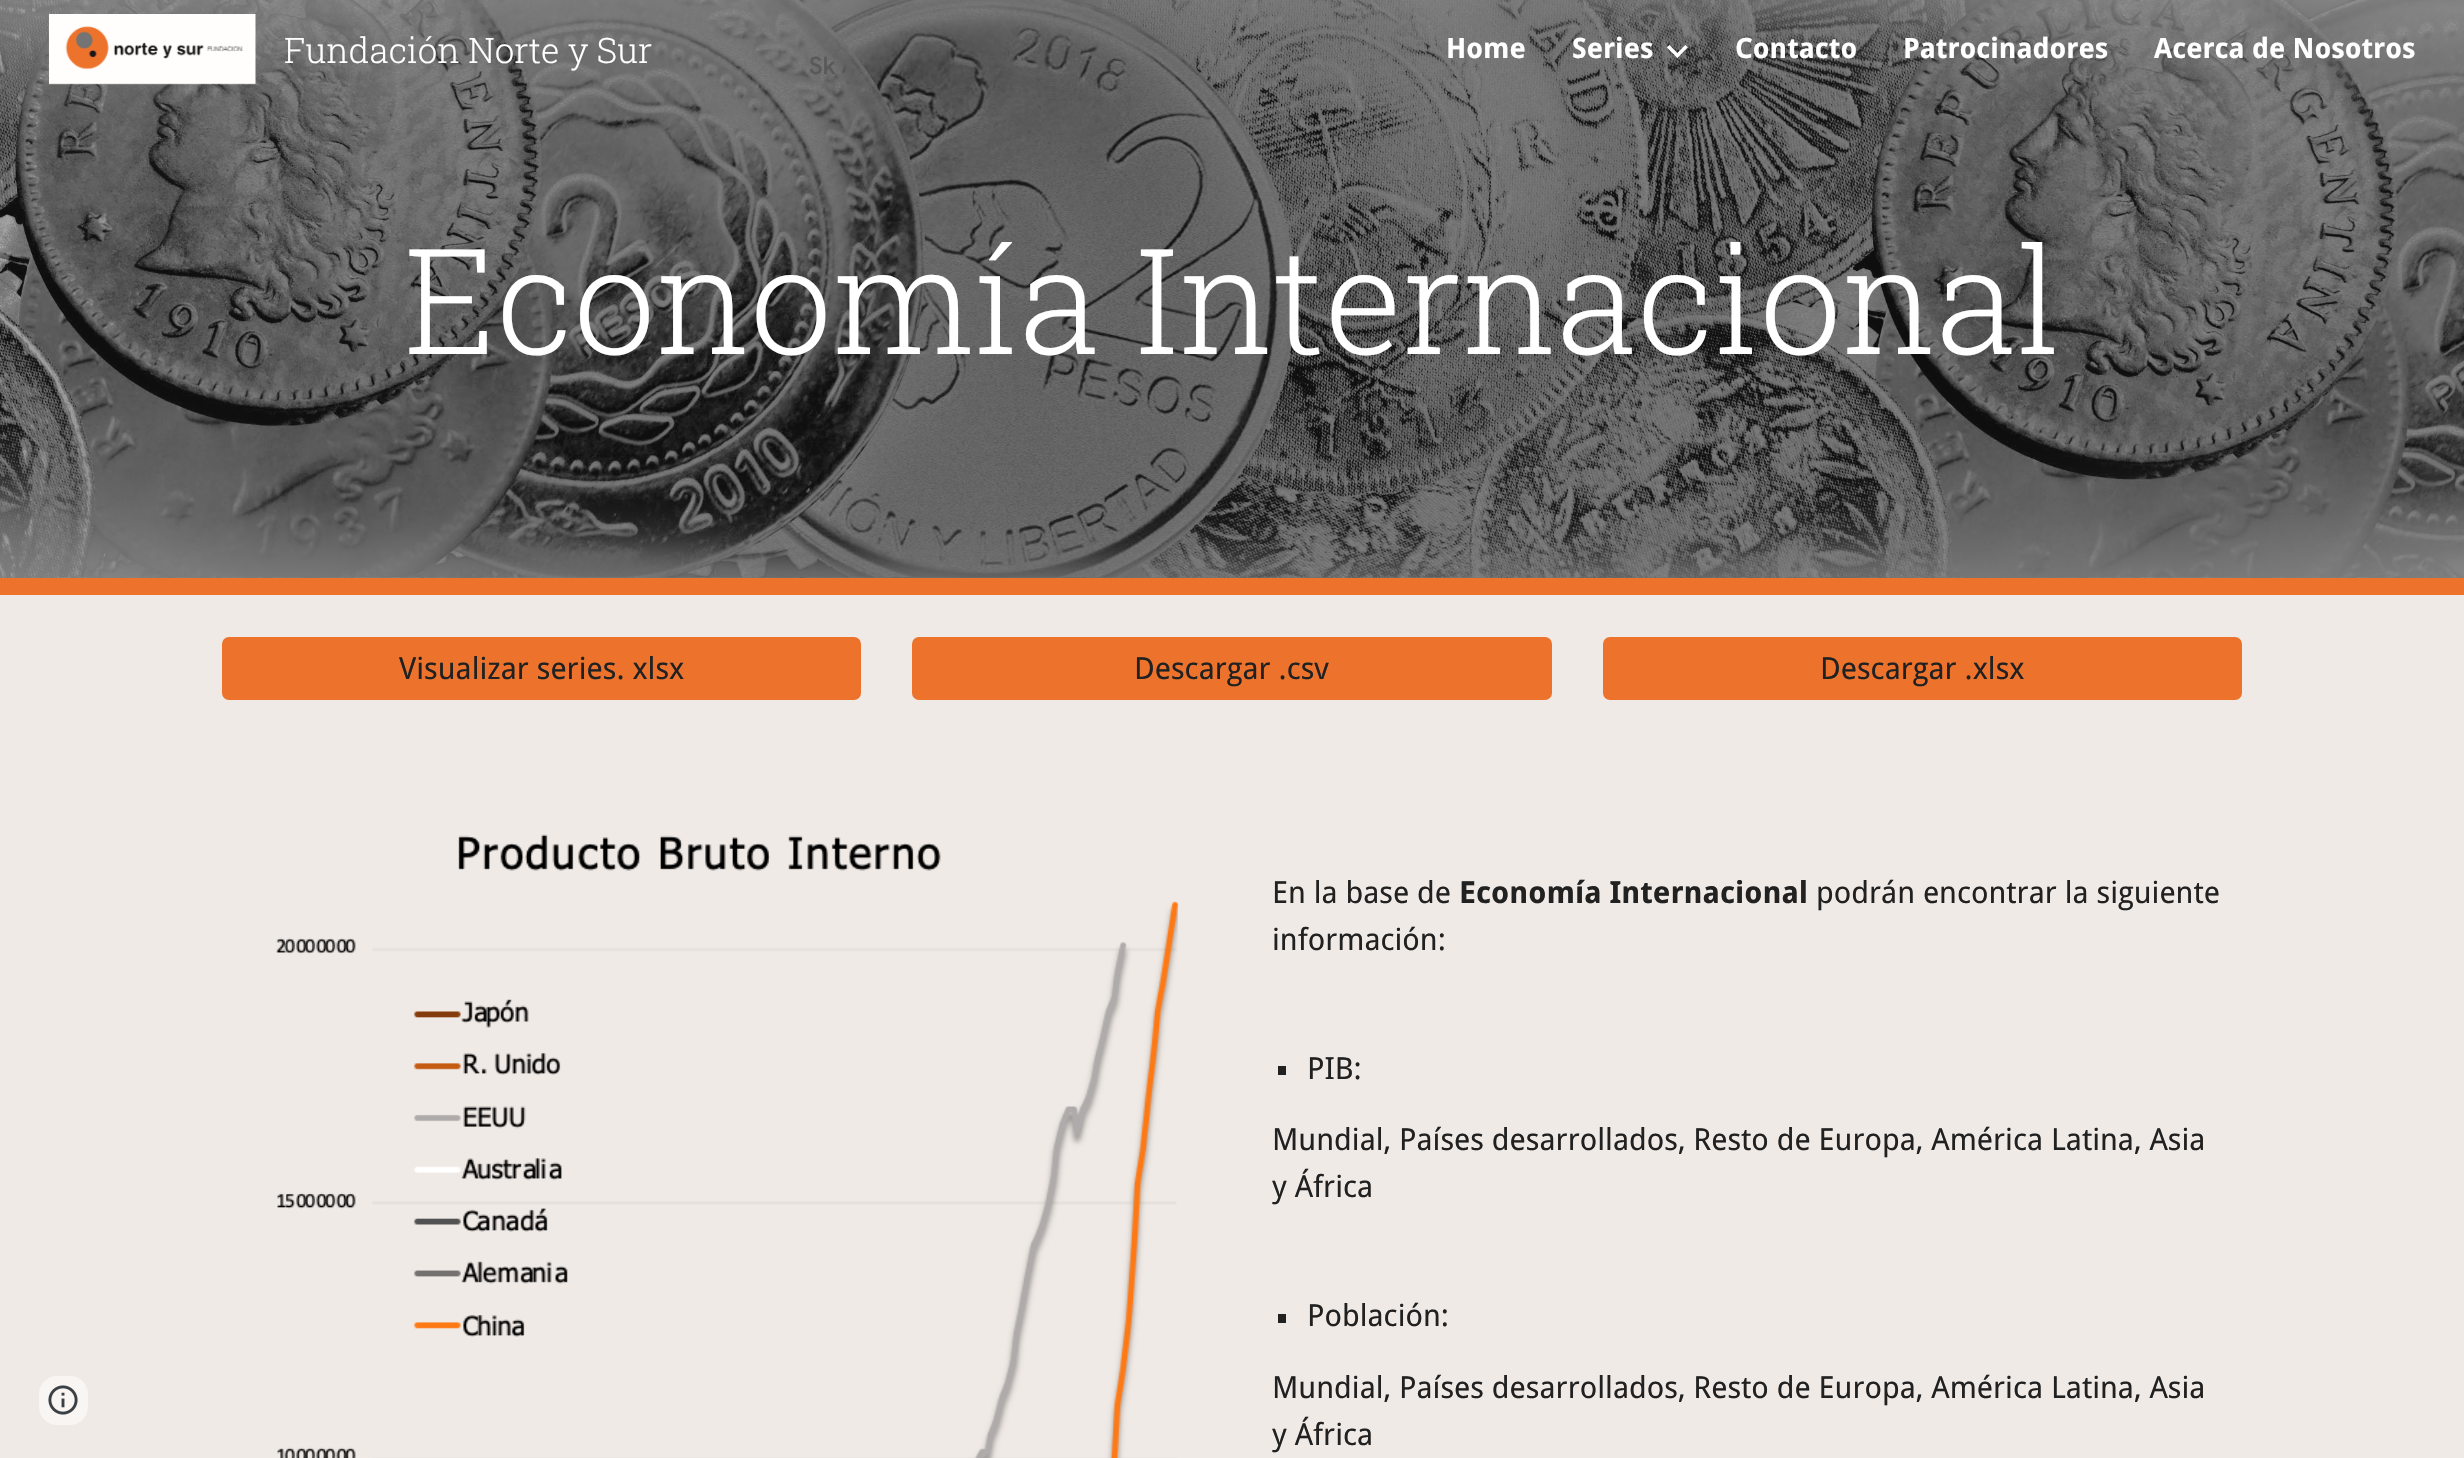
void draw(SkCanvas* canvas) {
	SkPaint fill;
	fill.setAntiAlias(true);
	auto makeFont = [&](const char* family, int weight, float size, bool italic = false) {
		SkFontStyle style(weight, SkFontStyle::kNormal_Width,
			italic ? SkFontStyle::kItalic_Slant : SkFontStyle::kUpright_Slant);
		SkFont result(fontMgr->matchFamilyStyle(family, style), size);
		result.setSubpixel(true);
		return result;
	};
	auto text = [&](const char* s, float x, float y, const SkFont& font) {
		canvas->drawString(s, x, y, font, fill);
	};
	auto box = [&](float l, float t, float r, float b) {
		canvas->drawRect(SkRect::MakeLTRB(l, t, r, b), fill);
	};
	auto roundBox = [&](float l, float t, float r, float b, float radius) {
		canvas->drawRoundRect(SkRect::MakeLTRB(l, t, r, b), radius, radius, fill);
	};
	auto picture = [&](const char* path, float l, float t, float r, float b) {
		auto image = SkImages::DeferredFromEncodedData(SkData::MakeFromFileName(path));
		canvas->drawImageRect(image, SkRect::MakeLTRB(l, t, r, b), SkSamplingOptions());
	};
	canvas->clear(0xFFF0EAE6);
	picture("image3.png", 0, 0, 2464, 578);
	picture("image0.png", 48, 14, 256, 85);
	picture("image1.png", 1667, 45, 1688, 58);
	fill.setColor(0xFFF8F5F3);
	roundBox(39, 1376, 88, 1425, 18);
	picture("image2.png", 48, 1385, 78, 1415);
	fill.setColor(0xFFED732D);
	box(0, 578, 2464, 595);
	canvas->drawRoundRect(SkRect::MakeLTRB(223, 638, 860, 699), 6, 6, fill);
	fill.setStyle(SkPaint::kStroke_Style);
	fill.setStrokeWidth(2);
	canvas->drawRoundRect(SkRect::MakeLTRB(223, 638, 860, 699), 6, 6, fill);
	fill.setStyle(SkPaint::kFill_Style);
	canvas->drawRoundRect(SkRect::MakeLTRB(913, 638, 1551, 699), 6, 6, fill);
	fill.setStyle(SkPaint::kStroke_Style);
	canvas->drawRoundRect(SkRect::MakeLTRB(913, 638, 1551, 699), 6, 6, fill);
	fill.setStyle(SkPaint::kFill_Style);
	canvas->drawRoundRect(SkRect::MakeLTRB(1604, 638, 2241, 699), 6, 6, fill);
	fill.setStyle(SkPaint::kStroke_Style);
	canvas->drawRoundRect(SkRect::MakeLTRB(1604, 638, 2241, 699), 6, 6, fill);
	picture("image4.png", 276, 834, 1179, 1458);
	fill.setStyle(SkPaint::kFill_Style);
	fill.setColor(0xFF212121);
	box(1278, 1066, 1286, 1075);
	box(1278, 1314, 1286, 1323);
	auto font1 = makeFont("Roboto Slab", 300, 35);
	fill.setColor(0xFFFFFFFF);
	text("Fundación Norte y Sur", 284, 63, font1);
	auto font2 = makeFont("Droid Sans", 700, 28);
	text("Home", 1446, 58, font2);
	text("Series", 1572, 58, font2);
	text("Contacto", 1735, 58, font2);
	text("Patrocinadores", 1903, 58, font2);
	text("Acerca de Nosotros", 2154, 58, font2);
	auto font3 = makeFont("Roboto Slab", 300, 147);
	text("Economía Internacional", 404, 354, font3);
	auto font4 = makeFont("Droid Sans", 400, 30.3f);
	fill.setColor(0xFF212121);
	text("Visualizar series. xlsx", 399, 679, font4);
	text("Descargar .csv", 1134, 679, font4);
	text("Descargar .xlsx", 1820, 679, font4);
	text("En la base de", 1272, 903, font4);
	auto font5 = makeFont("Droid Sans", 700, 30.3f);
	text("Economía Internacional", 1459, 903, font5);
	text("podrán encontrar la siguiente", 1816, 903, font4);
	text("información:", 1272, 950, font4);
	text("PIB:", 1307, 1079, font4);
	text("Mundial, Países desarrollados, Resto de Europa, América Latina, Asia", 1272, 1150, font4);
	text("y África", 1272, 1197, font4);
	text("Población:", 1307, 1326, font4);
	text("Mundial, Países desarrollados, Resto de Europa, América Latina, Asia", 1272, 1398, font4);
	text("y África", 1272, 1445, font4);
	auto font6 = makeFont("Google Sans", 500, 24);
	fill.setColor(0xFF595959);
	text("Sk", 809, 74, font6);
}
